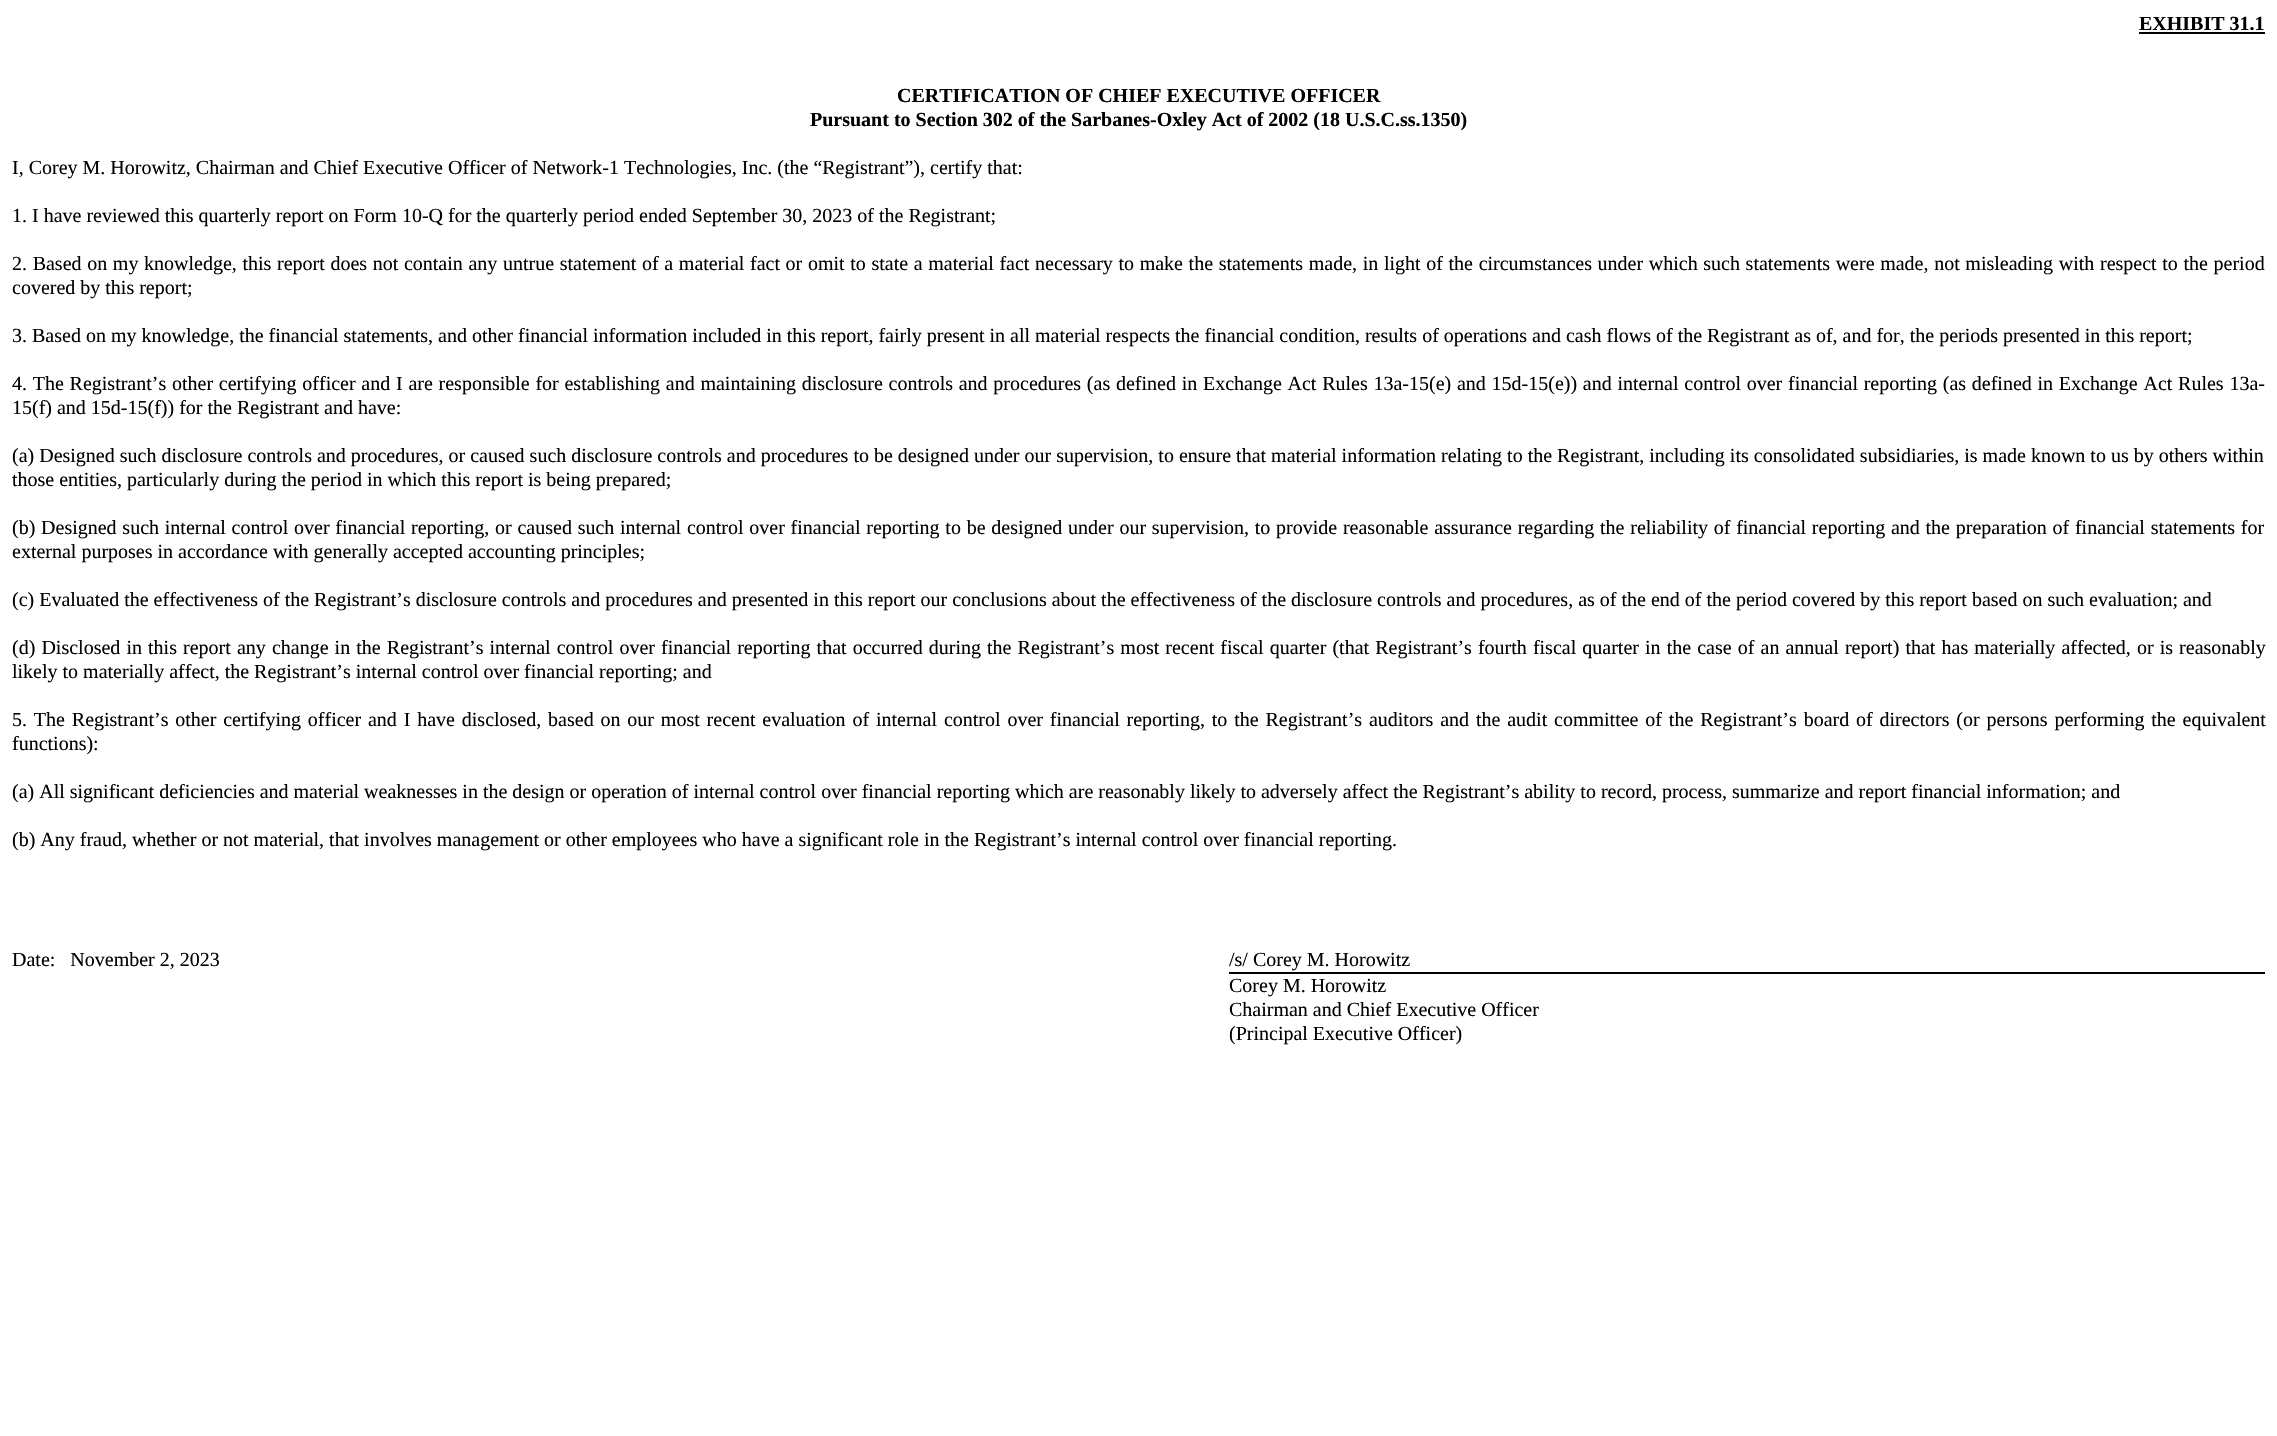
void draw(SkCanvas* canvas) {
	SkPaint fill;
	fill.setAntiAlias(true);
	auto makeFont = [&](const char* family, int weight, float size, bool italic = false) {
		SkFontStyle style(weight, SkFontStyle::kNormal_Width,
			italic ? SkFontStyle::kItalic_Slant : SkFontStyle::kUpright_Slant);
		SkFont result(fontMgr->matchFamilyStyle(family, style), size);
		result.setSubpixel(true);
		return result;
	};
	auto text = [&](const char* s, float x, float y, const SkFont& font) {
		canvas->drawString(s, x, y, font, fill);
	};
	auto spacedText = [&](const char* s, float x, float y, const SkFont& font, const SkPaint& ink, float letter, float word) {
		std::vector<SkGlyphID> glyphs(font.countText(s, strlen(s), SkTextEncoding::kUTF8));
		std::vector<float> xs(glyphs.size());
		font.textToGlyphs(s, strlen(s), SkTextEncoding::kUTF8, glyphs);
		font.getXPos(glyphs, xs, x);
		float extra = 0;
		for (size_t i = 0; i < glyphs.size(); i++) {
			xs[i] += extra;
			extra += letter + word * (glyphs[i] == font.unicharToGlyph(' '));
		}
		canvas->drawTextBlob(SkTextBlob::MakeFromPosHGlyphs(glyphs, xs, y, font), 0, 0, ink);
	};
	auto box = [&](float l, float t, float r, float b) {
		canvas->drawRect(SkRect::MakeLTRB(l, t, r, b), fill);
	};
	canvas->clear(0xFFFFFFFF);
	fill.setColor(0xFF000000);
	box(2139, 32, 2265, 34);
	box(1229, 972, 2265, 974);
	auto font1 = makeFont("Liberation Serif", 700, 20);
	text("EXHIBIT 31.1", 2139, 30, font1);
	text("CERTIFICATION OF CHIEF EXECUTIVE OFFICER", 897, 102, font1);
	text("Pursuant to Section 302 of the Sarbanes-Oxley Act of 2002 (18 U.S.C.ss.1350)", 810, 126, font1);
	auto font2 = makeFont("Liberation Serif", 400, 20);
	text("I, Corey M. Horowitz, Chairman and Chief Executive Officer of Network-1 Technologies, Inc. (the “Registrant”), certify that:", 12, 174, font2);
	text("1. I have reviewed this quarterly report on Form 10-Q for the quarterly period ended September 30, 2023 of the Registrant;", 12, 222, font2);
	spacedText("2. Based on my knowledge, this report does not contain any untrue statement of a material fact or omit to state a material fact necessary to make the statements made, in light of the circumstances under which such statements were made, not misleading with respect to the period", 12, 270, font2, fill, 0, 0.65f);
	text("covered by this report;", 12, 294, font2);
	text("3. Based on my knowledge, the financial statements, and other financial information included in this report, fairly present in all material respects the financial condition, results of operations and cash flows of the Registrant as of, and for, the periods presented in this report;", 12, 342, font2);
	spacedText("4. The Registrant’s other certifying officer and I are responsible for establishing and maintaining disclosure controls and procedures (as defined in Exchange Act Rules 13a-15(e) and 15d-15(e)) and internal control over financial reporting (as defined in Exchange Act Rules 13a-", 12, 390, font2, fill, 0, 0.75f);
	text("15(f) and 15d-15(f)) for the Registrant and have:", 12, 414, font2);
	text("(a) Designed such disclosure controls and procedures, or caused such disclosure controls and procedures to be designed under our supervision, to ensure that material information relating to the Registrant, including its consolidated subsidiaries, is made known to us by others within", 12, 462, font2);
	text("those entities, particularly during the period in which this report is being prepared;", 12, 486, font2);
	spacedText("(b) Designed such internal control over financial reporting, or caused such internal control over financial reporting to be designed under our supervision, to provide reasonable assurance regarding the reliability of financial reporting and the preparation of financial statements for", 12, 534, font2, fill, 0, 0.75f);
	text("external purposes in accordance with generally accepted accounting principles;", 12, 558, font2);
	text("(c) Evaluated the effectiveness of the Registrant’s disclosure controls and procedures and presented in this report our conclusions about the effectiveness of the disclosure controls and procedures, as of the end of the period covered by this report based on such evaluation; and", 12, 606, font2);
	spacedText("(d) Disclosed in this report any change in the Registrant’s internal control over financial reporting that occurred during the Registrant’s most recent fiscal quarter (that Registrant’s fourth fiscal quarter in the case of an annual report) that has materially affected, or is reasonably", 12, 654, font2, fill, 0, 1.1f);
	text("likely to materially affect, the Registrant’s internal control over financial reporting; and", 12, 678, font2);
	spacedText("5. The Registrant’s other certifying officer and I have disclosed, based on our most recent evaluation of internal control over financial reporting, to the Registrant’s auditors and the audit committee of the Registrant’s board of directors (or persons performing the equivalent", 12, 726, font2, fill, 0, 1.85f);
	text("functions):", 12, 750, font2);
	text("(a) All significant deficiencies and material weaknesses in the design or operation of internal control over financial reporting which are reasonably likely to adversely affect the Registrant’s ability to record, process, summarize and report financial information; and", 12, 798, font2);
	text("(b) Any fraud, whether or not material, that involves management or other employees who have a significant role in the Registrant’s internal control over financial reporting.", 12, 846, font2);
	text("Date:   November 2, 2023", 12, 966, font2);
	text("/s/ Corey M. Horowitz", 1229, 966, font2);
	text("Corey M. Horowitz", 1229, 992, font2);
	text("Chairman and Chief Executive Officer", 1229, 1016, font2);
	text("(Principal Executive Officer)", 1229, 1040, font2);
}
